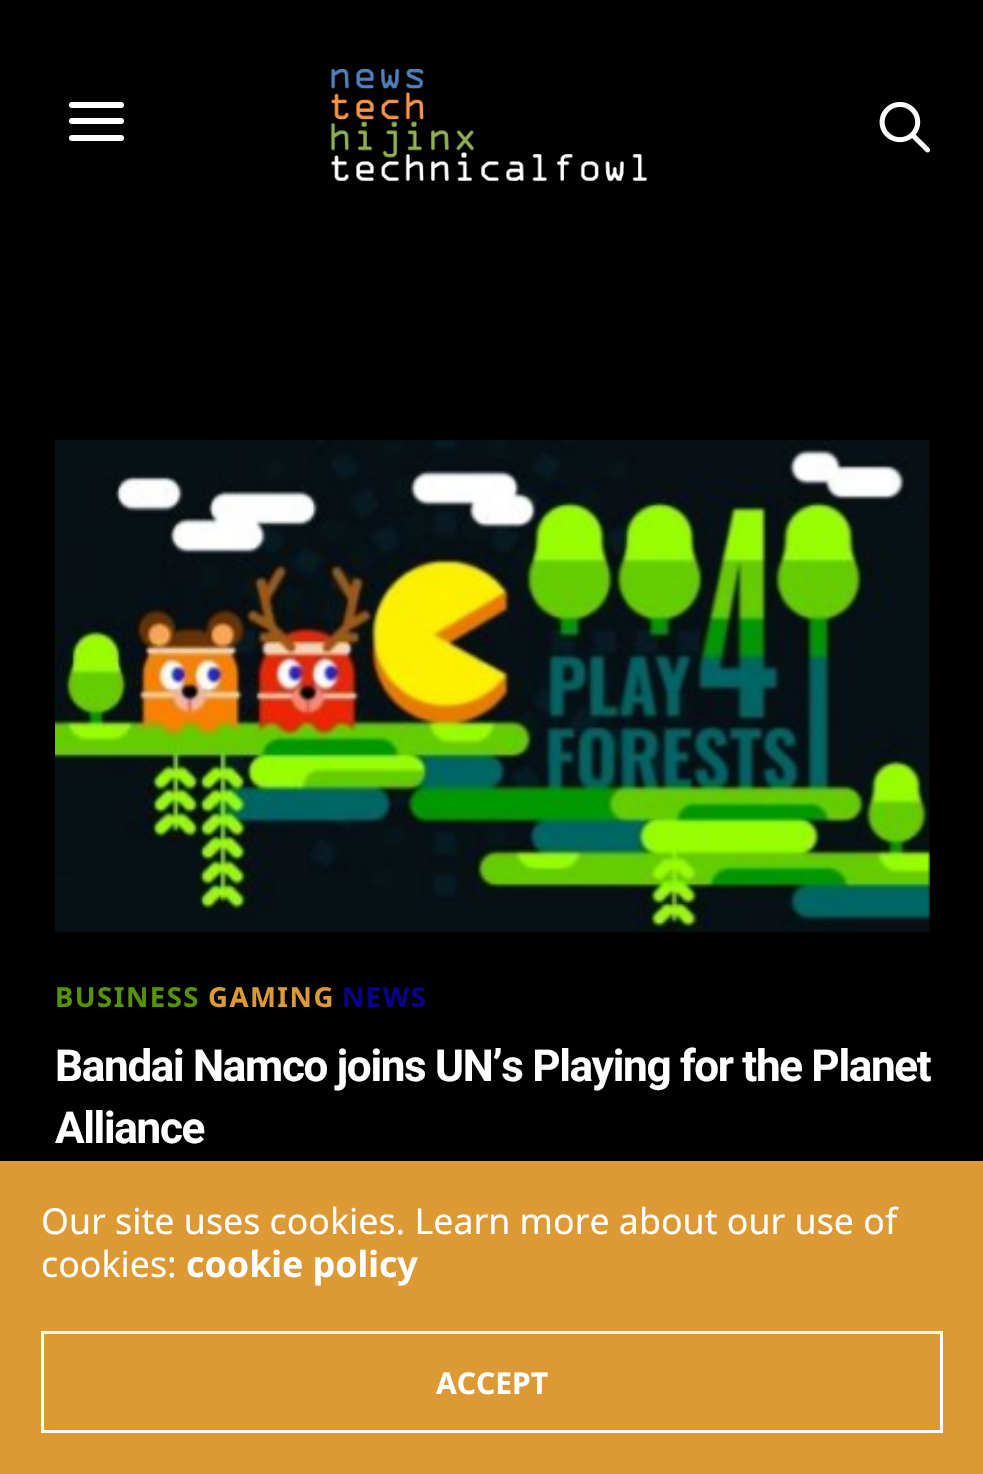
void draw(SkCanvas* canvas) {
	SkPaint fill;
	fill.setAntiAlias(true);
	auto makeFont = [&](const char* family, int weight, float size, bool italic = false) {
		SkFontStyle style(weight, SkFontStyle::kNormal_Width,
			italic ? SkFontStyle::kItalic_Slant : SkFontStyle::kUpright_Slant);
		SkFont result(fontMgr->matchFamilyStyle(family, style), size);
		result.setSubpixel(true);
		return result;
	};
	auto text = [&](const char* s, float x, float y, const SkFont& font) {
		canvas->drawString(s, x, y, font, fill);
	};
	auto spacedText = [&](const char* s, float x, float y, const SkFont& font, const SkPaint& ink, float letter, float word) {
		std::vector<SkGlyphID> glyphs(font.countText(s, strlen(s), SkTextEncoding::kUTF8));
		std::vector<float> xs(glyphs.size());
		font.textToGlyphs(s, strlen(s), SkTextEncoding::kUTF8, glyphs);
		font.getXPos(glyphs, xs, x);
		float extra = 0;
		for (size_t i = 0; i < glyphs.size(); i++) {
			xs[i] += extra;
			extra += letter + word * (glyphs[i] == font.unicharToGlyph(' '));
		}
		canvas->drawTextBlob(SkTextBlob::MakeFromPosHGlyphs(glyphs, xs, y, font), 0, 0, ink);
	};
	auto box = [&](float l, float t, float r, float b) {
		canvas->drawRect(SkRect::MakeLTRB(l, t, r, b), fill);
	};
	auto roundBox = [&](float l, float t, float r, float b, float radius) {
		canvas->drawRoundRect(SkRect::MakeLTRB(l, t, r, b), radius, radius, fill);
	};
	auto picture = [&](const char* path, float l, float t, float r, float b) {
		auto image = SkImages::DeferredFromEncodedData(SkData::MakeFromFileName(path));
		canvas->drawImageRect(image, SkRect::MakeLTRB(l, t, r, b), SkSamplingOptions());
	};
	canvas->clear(0xFF000000);
	fill.setColor(0xFFFFFFFF);
	roundBox(69, 102, 124, 108, 3);
	roundBox(69, 118, 124, 124, 3);
	roundBox(69, 135, 124, 141, 3);
	picture("image0.png", 330, 68, 647, 182);
	picture("image1.png", 879, 102, 930, 153);
	fill.setColor(0xFF080808);
	box(55, 440, 930, 932);
	picture("image2.png", 55, 440, 930, 933);
	fill.setColor(0xFFDD9933);
	box(0, 1161, 983, 1474);
	fill.setStyle(SkPaint::kStroke_Style);
	fill.setStrokeWidth(3);
	fill.setColor(0xFFFFFFFF);
	canvas->drawRect(SkRect::MakeLTRB(42.5f, 1332.5f, 941.5f, 1431.5f), fill);
	auto font1 = makeFont("Noto Sans", 700, 27.5f);
	fill.setStyle(SkPaint::kFill_Style);
	fill.setColor(0xFF569300);
	spacedText("BUSINESS", 55, 1007, font1, fill, 1.5f, 0);
	fill.setColor(0xFFDD9933);
	spacedText("GAMING", 208, 1007, font1, fill, 1.5f, 0);
	fill.setColor(0xFF0B0089);
	spacedText("NEWS", 342, 1007, font1, fill, 1.5f, 0);
	auto font2 = makeFont("Roboto", 700, 44);
	fill.setColor(0xFFFFFFFF);
	spacedText("Bandai Namco joins UN’s Playing for the Planet", 55, 1081, font2, fill, -1.3f, 0);
	spacedText("Alliance", 55, 1143, font2, fill, -1.3f, 0);
	auto font3 = makeFont("Noto Sans", 400, 35.75f);
	text("Our site uses cookies. Learn more about our use of", 41, 1234, font3);
	text("cookies:", 41, 1277, font3);
	auto font4 = makeFont("Noto Sans", 700, 35.75f);
	text("cookie policy", 186, 1277, font4);
	auto font5 = makeFont("Noto Sans", 700, 30);
	text("ACCEPT", 436, 1394, font5);
}
